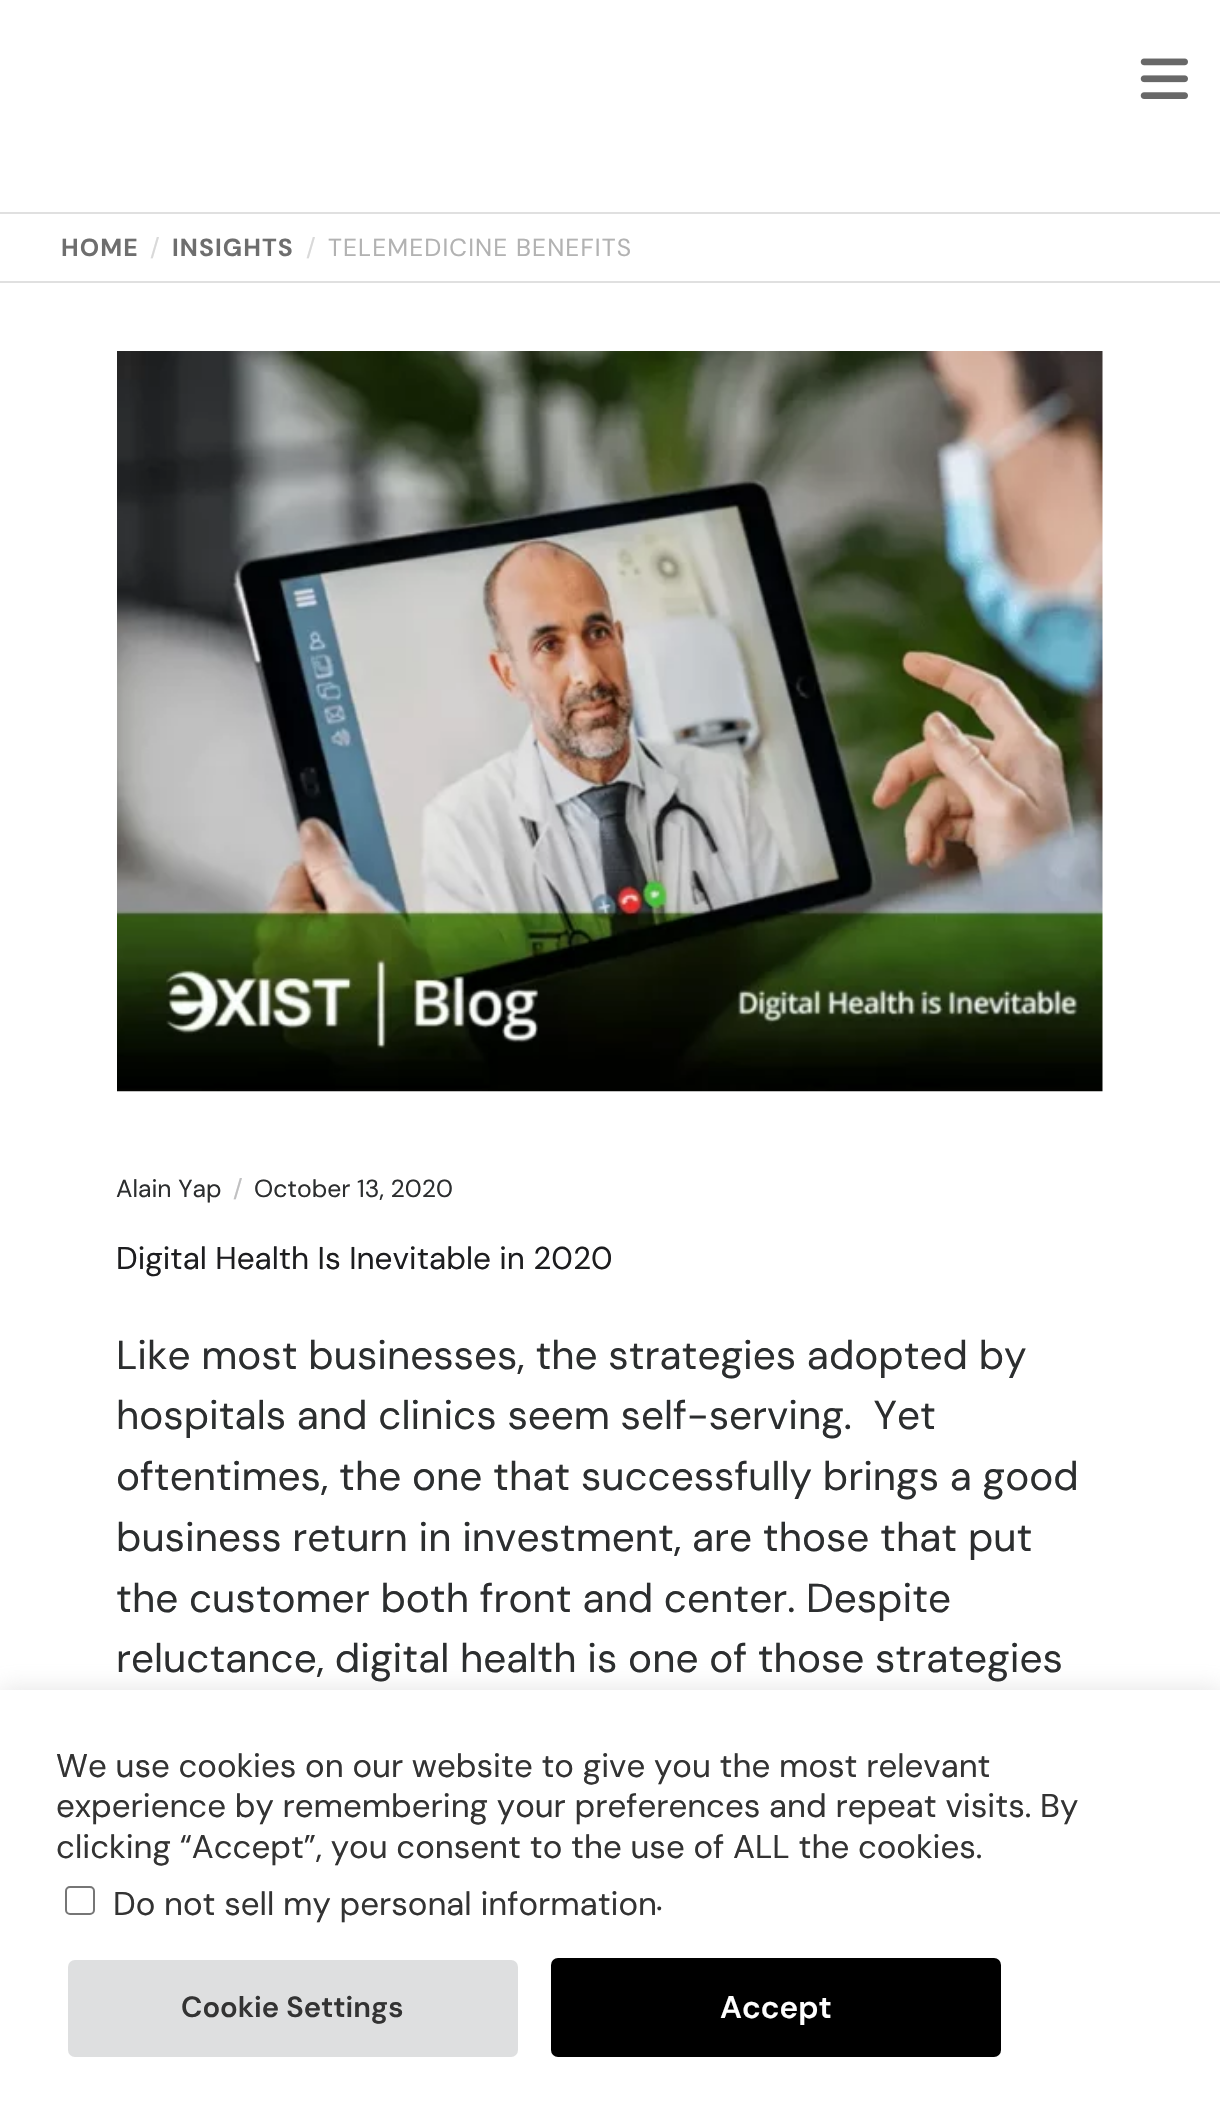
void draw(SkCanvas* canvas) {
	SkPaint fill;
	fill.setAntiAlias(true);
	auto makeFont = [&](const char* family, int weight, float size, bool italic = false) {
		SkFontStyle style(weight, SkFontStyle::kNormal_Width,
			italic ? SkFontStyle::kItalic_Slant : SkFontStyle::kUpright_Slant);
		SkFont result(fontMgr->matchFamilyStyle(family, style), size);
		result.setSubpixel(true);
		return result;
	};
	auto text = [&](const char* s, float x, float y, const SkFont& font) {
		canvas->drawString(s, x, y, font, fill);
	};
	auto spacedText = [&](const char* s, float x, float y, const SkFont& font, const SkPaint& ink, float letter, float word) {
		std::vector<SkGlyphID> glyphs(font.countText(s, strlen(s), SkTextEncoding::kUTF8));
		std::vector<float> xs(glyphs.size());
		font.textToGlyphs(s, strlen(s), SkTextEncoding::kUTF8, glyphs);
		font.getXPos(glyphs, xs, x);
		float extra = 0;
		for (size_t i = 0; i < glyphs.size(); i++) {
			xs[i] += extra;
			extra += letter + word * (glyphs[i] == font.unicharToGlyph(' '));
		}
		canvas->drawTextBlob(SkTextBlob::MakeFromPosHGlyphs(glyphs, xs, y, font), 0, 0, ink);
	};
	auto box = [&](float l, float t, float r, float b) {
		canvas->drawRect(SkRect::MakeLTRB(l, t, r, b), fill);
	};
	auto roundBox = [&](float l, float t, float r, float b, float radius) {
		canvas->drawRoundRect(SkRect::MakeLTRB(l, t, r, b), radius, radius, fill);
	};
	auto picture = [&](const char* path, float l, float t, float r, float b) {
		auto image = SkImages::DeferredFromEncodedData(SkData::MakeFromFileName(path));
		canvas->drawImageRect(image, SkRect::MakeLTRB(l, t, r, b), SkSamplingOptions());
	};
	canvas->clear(0xFFFFFFFF);
	picture("image0.png", 1140, 58, 1188, 99);
	fill.setColor(0xFFE0E0E0);
	box(0, 212, 1220, 214);
	box(0, 281, 1220, 283);
	picture("image1.png", 117, 351, 1103, 1092);
	fill.setColor(0x4DACABAB);
	fill.setMaskFilter(SkMaskFilter::MakeBlur(kNormal_SkBlurStyle, 11));
	canvas->drawRect(SkRect::MakeLTRB(0, 1688, 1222, 2122), fill);
	fill.setMaskFilter(nullptr);
	fill.setColor(0xFFFFFFFF);
	box(0, 1690, 1220, 2122);
	fill.setStyle(SkPaint::kStroke_Style);
	fill.setStrokeWidth(2);
	fill.setColor(0xFF767676);
	canvas->drawRoundRect(SkRect::MakeLTRB(66, 1887, 94, 1914), 4, 4, fill);
	fill.setStyle(SkPaint::kFill_Style);
	fill.setColor(0xFFDEDFE0);
	roundBox(68, 1960, 518, 2057, 7);
	fill.setColor(0xFF000000);
	roundBox(551, 1958, 1001, 2057, 7);
	auto font1 = makeFont("DM Sans", 700, 24.75f);
	fill.setColor(0xFF6E6E6E);
	spacedText("HOME", 61, 256, font1, fill, 1.1f, 0);
	auto font2 = makeFont("DM Sans", 400, 24.75f);
	fill.setColor(0xFFD9D9D9);
	spacedText("/", 150, 256, font2, fill, 1.1f, 0);
	fill.setColor(0xFF6E6E6E);
	spacedText("INSIGHTS", 172, 256, font1, fill, 1.1f, 0);
	fill.setColor(0xFFD9D9D9);
	spacedText("/", 306, 256, font2, fill, 1.1f, 0);
	fill.setColor(0xFFB2B2B2);
	spacedText("TELEMEDICINE BENEFITS", 328, 256, font2, fill, 1.1f, 0);
	fill.setColor(0xFF2C2E2F);
	text("Alain Yap", 116, 1197, font2);
	fill.setColor(0xFFC0C0C1);
	text("/", 233, 1197, font2);
	fill.setColor(0xFF2C2E2F);
	text("October 13, 2020", 254, 1197, font2);
	auto font3 = makeFont("DM Sans", 400, 31.5f);
	fill.setColor(0xFF1D1D1F);
	text("Digital Health Is Inevitable in 2020", 116, 1269, font3);
	auto font4 = makeFont("DM Sans", 400, 40.5f);
	fill.setColor(0xFF2C2E2F);
	text("Like most businesses, the strategies adopted by", 116, 1369, font4);
	text("hospitals and clinics seem self-serving.  Yet", 116, 1429, font4);
	text("oftentimes, the one that successfully brings a good", 116, 1490, font4);
	text("business return in investment, are those that put", 116, 1551, font4);
	text("the customer both front and center. Despite", 116, 1612, font4);
	text("reluctance, digital health is one of those strategies", 116, 1672, font4);
	auto font5 = makeFont("DM Sans", 400, 33);
	fill.setColor(0xFF333333);
	text("We use cookies on our website to give you the most relevant", 56, 1777, font5);
	text("experience by remembering your preferences and repeat visits. By", 56, 1817, font5);
	text("clicking “Accept”, you consent to the use of ALL the cookies.", 56, 1858, font5);
	text("Do not sell my personal information", 113, 1915, font5);
	text(".", 656, 1910, font5);
	auto font6 = makeFont("DM Sans", 600, 29.25f);
	text("Cookie Settings", 181, 2017, font6);
	auto font7 = makeFont("DM Sans", 600, 31.5f);
	fill.setColor(0xFFFFFFFF);
	text("Accept", 720, 2018, font7);
}
